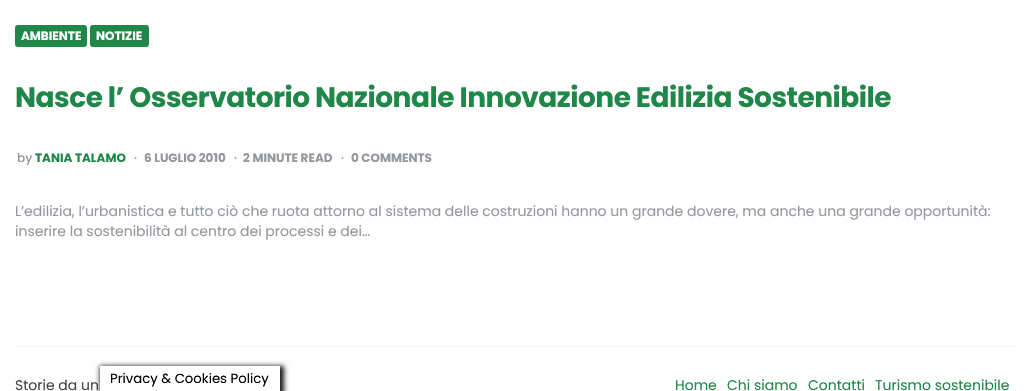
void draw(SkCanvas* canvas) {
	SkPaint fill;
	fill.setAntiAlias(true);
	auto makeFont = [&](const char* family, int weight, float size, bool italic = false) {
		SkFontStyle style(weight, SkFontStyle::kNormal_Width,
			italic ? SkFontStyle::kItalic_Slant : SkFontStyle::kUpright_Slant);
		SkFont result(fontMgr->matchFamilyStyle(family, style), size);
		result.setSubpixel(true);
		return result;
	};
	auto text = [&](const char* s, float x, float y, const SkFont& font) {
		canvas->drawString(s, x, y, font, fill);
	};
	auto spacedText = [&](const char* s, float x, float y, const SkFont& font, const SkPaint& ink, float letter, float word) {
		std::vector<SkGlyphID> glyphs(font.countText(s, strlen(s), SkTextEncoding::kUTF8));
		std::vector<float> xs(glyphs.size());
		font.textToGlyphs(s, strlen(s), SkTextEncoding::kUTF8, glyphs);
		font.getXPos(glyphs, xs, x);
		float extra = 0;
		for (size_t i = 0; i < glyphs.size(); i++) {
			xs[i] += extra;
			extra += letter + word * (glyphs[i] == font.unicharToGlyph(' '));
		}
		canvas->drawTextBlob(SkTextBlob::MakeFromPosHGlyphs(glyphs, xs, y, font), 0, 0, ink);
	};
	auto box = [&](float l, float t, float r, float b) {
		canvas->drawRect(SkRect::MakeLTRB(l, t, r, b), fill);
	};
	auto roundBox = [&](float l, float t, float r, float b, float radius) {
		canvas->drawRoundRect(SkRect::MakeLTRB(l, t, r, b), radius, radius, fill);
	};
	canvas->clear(0xFFFFFFFF);
	fill.setColor(0xFF1F8748);
	roundBox(15, 25, 87, 47, 3);
	roundBox(90, 25, 149, 47, 3);
	fill.setColor(0xFF161616);
	fill.setMaskFilter(SkMaskFilter::MakeBlur(kNormal_SkBlurStyle, 2.5f));
	canvas->drawRect(SkRect::MakeLTRB(100, 366, 284, 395), fill);
	fill.setMaskFilter(nullptr);
	fill.setColor(0xFFFFFFFF);
	box(100, 366, 280, 391);
	fill.setColor(0xFFF1F1F1);
	box(15, 346, 1014, 347);
	auto font1 = makeFont("Poppins", 700, 12);
	fill.setColor(0xFFFFFFFF);
	text("AMBIENTE", 21, 40, font1);
	text("NOTIZIE", 96, 40, font1);
	auto font2 = makeFont("Poppins", 700, 28);
	fill.setColor(0xFF1F8748);
	spacedText("Nasce l’ Osservatorio Nazionale Innovazione Edilizia Sostenibile", 15, 107, font2, fill, -0.5f, 0);
	auto font3 = makeFont("Poppins", 500, 12);
	fill.setColor(0xFF94979E);
	text("by", 17, 162, font3);
	fill.setColor(0xFF1F8748);
	text("TANIA TALAMO", 35, 162, font1);
	fill.setColor(0xFF94979E);
	text("·", 134, 162, font3);
	text("6 LUGLIO 2010", 144, 162, font1);
	text("·", 234, 162, font3);
	text("2 MINUTE READ", 243, 162, font1);
	text("·", 341, 162, font3);
	text("0 COMMENTS", 351, 162, font1);
	auto font4 = makeFont("Poppins", 400, 14);
	text("L’edilizia, l’urbanistica e tutto ciò che ruota attorno al sistema delle costruzioni hanno un grande dovere, ma anche una grande opportunità:", 15, 216, font4);
	text("inserire la sostenibilità al centro dei processi e dei…", 15, 236, font4);
	auto font5 = makeFont("Poppins", 400, 13.25f);
	fill.setColor(0xFF000000);
	text("Privacy & Cookies Policy", 110, 383, font5);
	fill.setColor(0xFF45464B);
	text("Storie da un", 15, 390, font4);
	fill.setColor(0xFF1F8748);
	text("Home", 675, 390, font4);
	text("Chi siamo", 727, 390, font4);
	text("Contatti", 808, 390, font4);
	text("Turismo sostenibile", 875, 390, font4);
}
